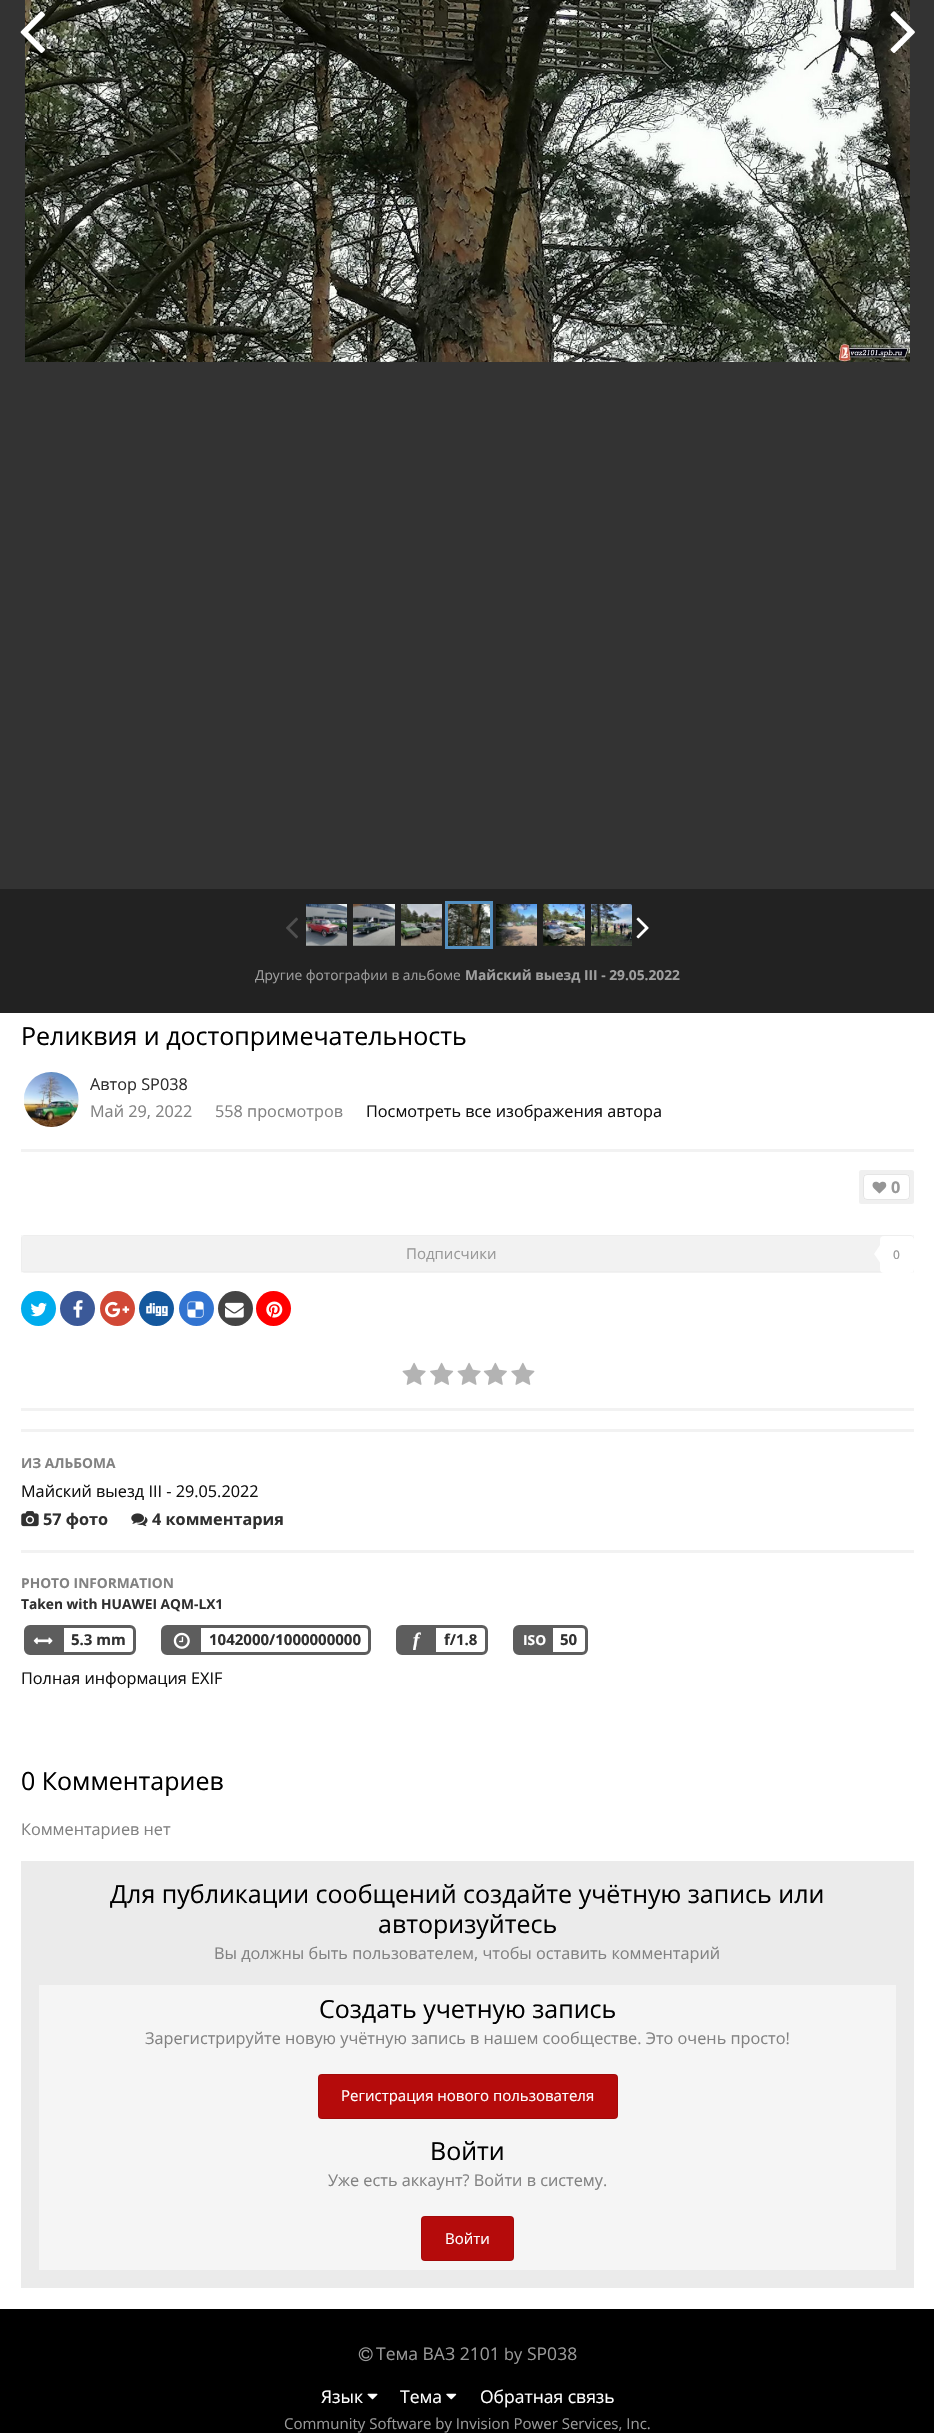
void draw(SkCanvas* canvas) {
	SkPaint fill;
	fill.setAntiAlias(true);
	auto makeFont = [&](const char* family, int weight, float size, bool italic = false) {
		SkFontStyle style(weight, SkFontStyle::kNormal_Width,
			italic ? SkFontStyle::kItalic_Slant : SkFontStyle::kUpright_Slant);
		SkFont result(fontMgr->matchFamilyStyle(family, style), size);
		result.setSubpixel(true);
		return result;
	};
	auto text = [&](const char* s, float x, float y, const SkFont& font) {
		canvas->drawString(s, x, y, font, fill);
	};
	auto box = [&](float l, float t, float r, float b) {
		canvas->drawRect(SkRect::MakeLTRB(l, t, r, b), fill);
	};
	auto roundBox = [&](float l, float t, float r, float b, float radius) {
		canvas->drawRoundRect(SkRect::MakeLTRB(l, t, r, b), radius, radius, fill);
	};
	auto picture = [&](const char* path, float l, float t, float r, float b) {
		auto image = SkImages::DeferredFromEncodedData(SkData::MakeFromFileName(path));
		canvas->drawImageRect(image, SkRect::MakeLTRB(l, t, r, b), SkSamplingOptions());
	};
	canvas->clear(0xFF000000);
	fill.setColor(0xFFFFFFFF);
	box(0, 1013, 934, 2309);
	fill.setColor(0xFF333333);
	box(0, 0, 934, 889);
	picture("image0.png", 25, 0, 910, 362);
	picture("image1.png", 20, 11, 45, 53);
	picture("image2.png", 890, 11, 915, 53);
	fill.setColor(0xFF222222);
	box(0, 889, 934, 1013);
	picture("image3.png", 286, 917, 298, 939);
	picture("image4.png", 306, 904, 347, 946);
	picture("image5.png", 353, 904, 395, 946);
	picture("image6.png", 401, 904, 442, 946);
	picture("image7.png", 448, 904, 490, 946);
	fill.setStyle(SkPaint::kStroke_Style);
	fill.setStrokeWidth(3);
	fill.setColor(0xFF5490C0);
	canvas->drawRect(SkRect::MakeLTRB(446.5f, 902.5f, 491.5f, 947.5f), fill);
	picture("image8.png", 496, 904, 537, 946);
	picture("image9.png", 543, 904, 585, 946);
	picture("image10.png", 591, 904, 632, 946);
	picture("image11.png", 636, 917, 649, 939);
	picture("image12.png", 24, 1072, 79, 1127);
	fill.setStyle(SkPaint::kFill_Style);
	fill.setColor(0xFFF2F2F2);
	box(21, 1149, 914, 1152);
	fill.setColor(0xFFF0F0F0);
	roundBox(859, 1170, 914, 1204, 2.5f);
	fill.setColor(0xFFFFFFFF);
	roundBox(863, 1174, 910, 1200, 4);
	fill.setStyle(SkPaint::kStroke_Style);
	fill.setStrokeWidth(1);
	fill.setColor(0x1A000000);
	canvas->drawRoundRect(SkRect::MakeLTRB(863.5f, 1174.5f, 909.5f, 1199.5f), 3.5f, 3.5f, fill);
	picture("image13.png", 872, 1181, 887, 1194);
	fill.setStyle(SkPaint::kFill_Style);
	fill.setColor(0xFFF2F2F2);
	roundBox(21, 1235, 914, 1273, 4);
	fill.setColor(0x08808080);
	box(21, 1235, 914, 1236);
	box(913, 1235, 914, 1273);
	box(21, 1271, 914, 1272);
	box(21, 1235, 22, 1273);
	fill.setColor(0xFFFFFFFF);
	roundBox(880, 1236, 914, 1273, 4);
	canvas->drawPath(SkPathBuilder().moveTo(880, 1245).lineTo(880, 1262.5f).lineTo(874, 1254).close().detach(), fill);
	fill.setColor(0xFF00ACED);
	canvas->drawCircle(38.5f, 1308.5f, 17.5f, fill);
	picture("image14.png", 30, 1302, 47, 1317);
	fill.setColor(0xFF3B5998);
	canvas->drawCircle(77.5f, 1308.5f, 17.5f, fill);
	picture("image15.png", 73, 1300, 83, 1318);
	fill.setColor(0xFFD14836);
	canvas->drawCircle(117.5f, 1308.5f, 17.5f, fill);
	picture("image16.png", 105, 1301, 130, 1318);
	fill.setColor(0xFF14589E);
	canvas->drawCircle(156.5f, 1308.5f, 17.5f, fill);
	picture("image17.png", 146, 1303, 168, 1316);
	fill.setColor(0xFF3274D1);
	canvas->drawCircle(196.5f, 1308.5f, 17.5f, fill);
	picture("image18.png", 187, 1301, 204, 1318);
	fill.setColor(0xFF444444);
	canvas->drawCircle(235.5f, 1308.5f, 17.5f, fill);
	picture("image19.png", 225, 1302, 244, 1318);
	fill.setColor(0xFFFF0000);
	canvas->drawCircle(273.5f, 1308.5f, 17.5f, fill);
	picture("image20.png", 266, 1301, 283, 1318);
	picture("image21.png", 402, 1362, 426, 1385);
	picture("image22.png", 430, 1362, 454, 1385);
	picture("image21.png", 457, 1362, 481, 1385);
	picture("image23.png", 483, 1362, 507, 1385);
	picture("image24.png", 511, 1362, 535, 1385);
	fill.setColor(0xFFF2F2F2);
	box(21, 1408, 914, 1411);
	box(21, 1429, 914, 1432);
	picture("image25.png", 21, 1511, 39, 1527);
	picture("image26.png", 131, 1513, 148, 1527);
	box(21, 1550, 914, 1553);
	fill.setStyle(SkPaint::kStroke_Style);
	fill.setStrokeWidth(3);
	fill.setColor(0xFF5D5D5D);
	canvas->drawRoundRect(SkRect::MakeLTRB(25.5f, 1626.5f, 134.5f, 1653.5f), 4.5f, 4.5f, fill);
	fill.setStyle(SkPaint::kFill_Style);
	box(27, 1628, 64, 1652);
	picture("image27.png", 33, 1637, 53, 1645);
	fill.setStyle(SkPaint::kStroke_Style);
	canvas->drawRoundRect(SkRect::MakeLTRB(162.5f, 1626.5f, 369.5f, 1653.5f), 4.5f, 4.5f, fill);
	fill.setStyle(SkPaint::kFill_Style);
	box(164, 1628, 201, 1652);
	picture("image28.png", 173, 1632, 190, 1649);
	fill.setStyle(SkPaint::kStroke_Style);
	canvas->drawRoundRect(SkRect::MakeLTRB(397.5f, 1626.5f, 486.5f, 1653.5f), 4.5f, 4.5f, fill);
	fill.setStyle(SkPaint::kFill_Style);
	box(399, 1628, 436, 1652);
	fill.setStyle(SkPaint::kStroke_Style);
	canvas->drawRoundRect(SkRect::MakeLTRB(514.5f, 1626.5f, 586.5f, 1653.5f), 4.5f, 4.5f, fill);
	fill.setStyle(SkPaint::kFill_Style);
	box(516, 1628, 553, 1652);
	fill.setColor(0xFFEBEBEB);
	box(21, 1861, 914, 2288);
	fill.setColor(0xFFF5F5F5);
	box(39, 1985, 896, 2270);
	fill.setColor(0xFFB50B0B);
	roundBox(318, 2074, 618, 2119, 4);
	fill.setStyle(SkPaint::kStroke_Style);
	fill.setStrokeWidth(1);
	fill.setColor(0x1A000000);
	canvas->drawRoundRect(SkRect::MakeLTRB(318.5f, 2074.5f, 617.5f, 2118.5f), 3.5f, 3.5f, fill);
	fill.setStyle(SkPaint::kFill_Style);
	fill.setColor(0xFFB50B0B);
	roundBox(421, 2216, 514, 2261, 4);
	fill.setStyle(SkPaint::kStroke_Style);
	fill.setColor(0x1A000000);
	canvas->drawRoundRect(SkRect::MakeLTRB(421.5f, 2216.5f, 513.5f, 2260.5f), 3.5f, 3.5f, fill);
	picture("image29.png", 358, 2347, 373, 2362);
	picture("image30.png", 367, 2393, 378, 2400);
	picture("image31.png", 446, 2393, 457, 2400);
	auto font1 = makeFont("Open Sans", 400, 13.75f);
	fill.setStyle(SkPaint::kFill_Style);
	fill.setColor(0xFF9F9F9F);
	text("Другие фотографии в альбоме", 255, 980, font1);
	auto font2 = makeFont("Open Sans", 700, 13.75f);
	text("Майский выезд III - 29.05.2022", 465, 980, font2);
	auto font3 = makeFont("Open Sans", 400, 25);
	fill.setColor(0xFF000000);
	text("Реликвия и достопримечательность", 21, 1045, font3);
	auto font4 = makeFont("Open Sans", 400, 16.25f);
	fill.setColor(0xFF303030);
	text("Автор SP038", 90, 1090, font4);
	fill.setColor(0xFF828282);
	text("Май 29, 2022", 90, 1117, font4);
	text("558 просмотров", 215, 1117, font4);
	fill.setColor(0xFF111111);
	text("Посмотреть все изображения автора", 366, 1117, font4);
	auto font5 = makeFont("Open Sans", 700, 16.25f);
	fill.setColor(0xFF999999);
	text("0", 891, 1193, font5);
	auto font6 = makeFont("Open Sans", 400, 15);
	text("Подписчики", 406, 1259, font6);
	auto font7 = makeFont("Open Sans", 500, 12);
	text("0", 893, 1259, font7);
	fill.setColor(0xFF828282);
	text("ИЗ АЛЬБОМА", 21, 1468, font2);
	fill.setColor(0xFF111111);
	text("Майский выезд III - 29.05.2022", 21, 1497, font4);
	fill.setColor(0xFF303030);
	text("57 фото", 43, 1525, font5);
	text("4 комментария", 152, 1525, font5);
	fill.setColor(0xFF828282);
	text("PHOTO INFORMATION", 21, 1588, font2);
	fill.setColor(0xFF303030);
	text("Taken with HUAWEI AQM-LX1", 21, 1609, font2);
	auto font8 = makeFont("Open Sans", 700, 15);
	text("5.3 mm", 71, 1645, font8);
	text("1042000/1000000000", 209, 1645, font8);
	auto font9 = makeFont("Liberation Serif", 700, 19, true);
	fill.setColor(0xFFFFFFFF);
	text("f", 413, 1646, font9);
	fill.setColor(0xFF303030);
	text("f/1.8", 444, 1645, font8);
	fill.setColor(0xFFFFFFFF);
	text("ISO", 523, 1645, font2);
	fill.setColor(0xFF303030);
	text("50", 560, 1645, font8);
	fill.setColor(0xFF111111);
	text("Полная информация EXIF", 21, 1684, font4);
	fill.setColor(0xFF000000);
	text("0 Комментариев", 21, 1790, font3);
	fill.setColor(0xFF828282);
	text("Комментариев нет", 21, 1835, font4);
	fill.setColor(0xFF000000);
	text("Для публикации сообщений создайте учётную запись или", 110, 1903, font3);
	text("авторизуйтесь", 378, 1933, font3);
	fill.setColor(0xFF828282);
	text("Вы должны быть пользователем, чтобы оставить комментарий", 214, 1959, font4);
	fill.setColor(0xFF000000);
	text("Создать учетную запись", 319, 2018, font3);
	fill.setColor(0xFF828282);
	text("Зарегистрируйте новую учётную запись в нашем сообществе. Это очень просто!", 145, 2044, font4);
	fill.setColor(0xFFFFFFFF);
	text("Регистрация нового пользователя", 341, 2101, font6);
	fill.setColor(0xFF000000);
	text("Войти", 430, 2160, font3);
	fill.setColor(0xFF828282);
	text("Уже есть аккаунт? Войти в систему.", 328, 2186, font4);
	fill.setColor(0xFFFFFFFF);
	text("Войти", 445, 2244, font6);
	auto font10 = makeFont("Open Sans", 400, 17.5f);
	fill.setColor(0xFF999999);
	text("Тема ВАЗ 2101", 376, 2360, font10);
	text("by", 504, 2360, font4);
	text("SP038", 527, 2360, font10);
	fill.setColor(0xFFFFFFFF);
	text("Язык", 321, 2403, font10);
	text("Тема", 400, 2403, font10);
	text("Обратная связь", 480, 2403, font10);
	fill.setColor(0xFF999999);
	text("Community Software by Invision Power Services, Inc.", 284, 2429, font6);
}
